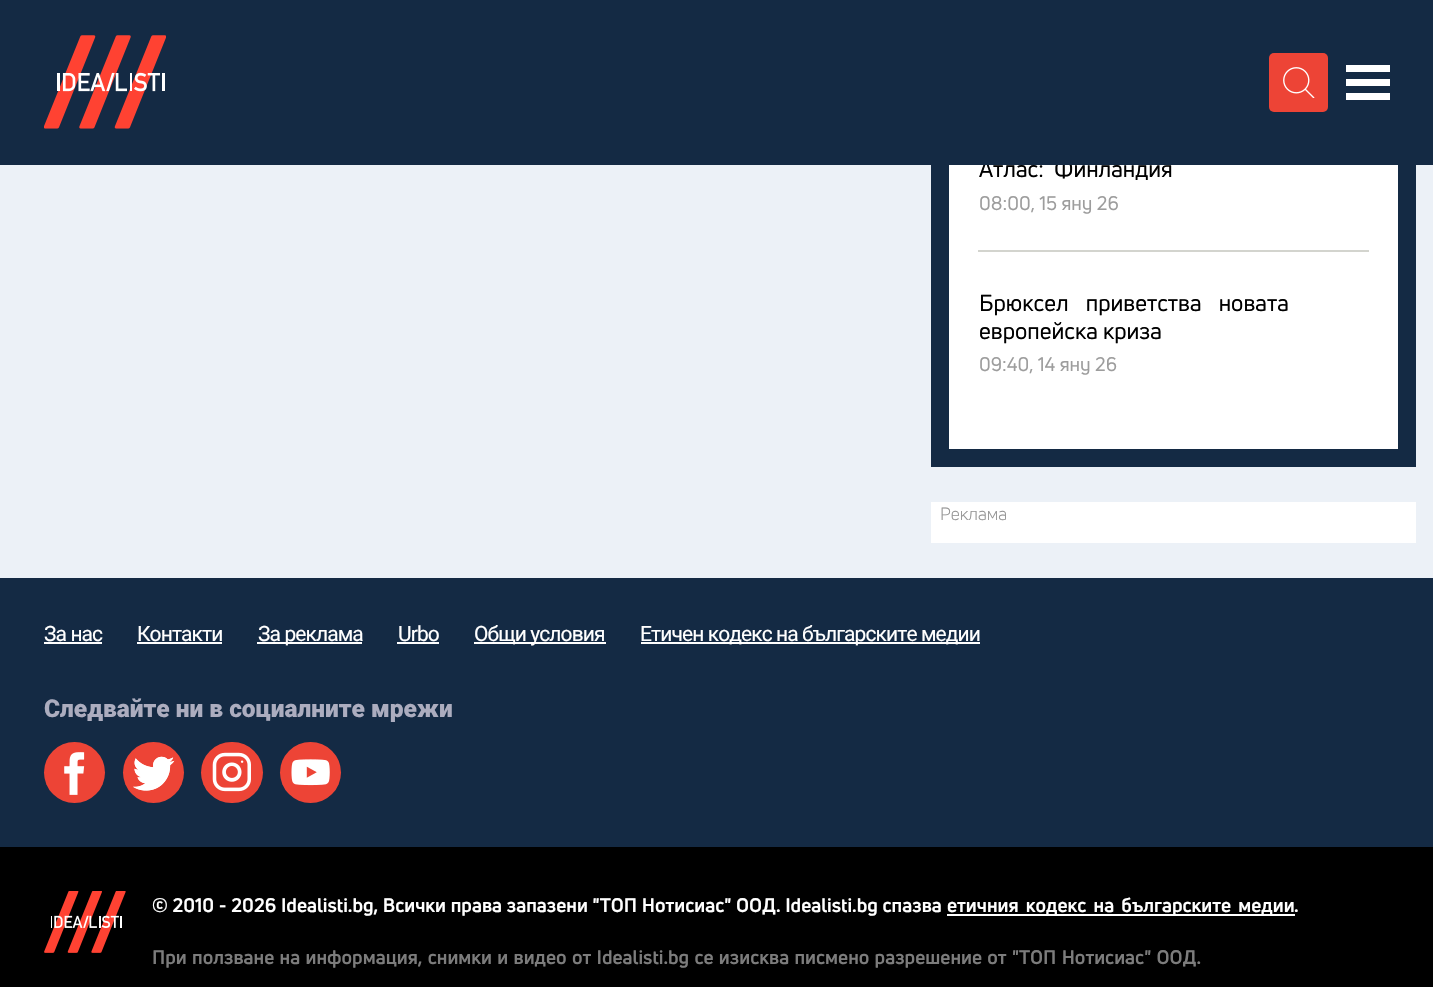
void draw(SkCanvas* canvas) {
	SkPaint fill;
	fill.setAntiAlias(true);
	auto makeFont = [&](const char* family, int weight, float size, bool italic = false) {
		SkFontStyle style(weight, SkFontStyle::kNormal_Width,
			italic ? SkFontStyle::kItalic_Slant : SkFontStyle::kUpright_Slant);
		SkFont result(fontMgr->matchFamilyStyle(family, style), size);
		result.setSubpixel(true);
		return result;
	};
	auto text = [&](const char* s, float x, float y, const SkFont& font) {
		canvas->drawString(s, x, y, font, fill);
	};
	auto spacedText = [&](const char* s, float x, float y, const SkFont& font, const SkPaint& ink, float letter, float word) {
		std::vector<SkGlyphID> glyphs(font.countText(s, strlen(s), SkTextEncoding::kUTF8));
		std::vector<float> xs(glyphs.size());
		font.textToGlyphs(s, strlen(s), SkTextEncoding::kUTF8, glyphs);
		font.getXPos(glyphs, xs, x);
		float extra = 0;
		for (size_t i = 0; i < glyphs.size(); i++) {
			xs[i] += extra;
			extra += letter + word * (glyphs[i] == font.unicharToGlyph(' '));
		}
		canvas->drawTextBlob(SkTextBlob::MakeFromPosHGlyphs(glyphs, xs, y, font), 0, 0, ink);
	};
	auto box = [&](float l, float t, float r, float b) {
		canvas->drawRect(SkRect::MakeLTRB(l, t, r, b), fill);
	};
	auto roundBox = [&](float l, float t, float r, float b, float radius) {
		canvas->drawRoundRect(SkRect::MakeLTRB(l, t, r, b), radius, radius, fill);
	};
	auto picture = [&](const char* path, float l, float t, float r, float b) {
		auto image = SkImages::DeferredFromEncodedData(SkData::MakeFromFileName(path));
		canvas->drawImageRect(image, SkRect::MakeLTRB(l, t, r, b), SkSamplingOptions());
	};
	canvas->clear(0xFFECF1F7);
	fill.setColor(0xFFFFFFFF);
	box(949, 165, 1398, 449);
	fill.setStyle(SkPaint::kStroke_Style);
	fill.setStrokeWidth(18);
	fill.setColor(0xFF142A44);
	canvas->drawRect(SkRect::MakeLTRB(940, -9, 1407, 458), fill);
	fill.setStyle(SkPaint::kFill_Style);
	fill.setColor(0xFFD3D4CE);
	box(978, 250, 1369, 252);
	fill.setColor(0xFFFFFFFF);
	box(931, 502, 1416, 543);
	fill.setColor(0xFF142A44);
	box(0, 578, 1433, 847);
	fill.setColor(0xFFFFFFFF);
	box(44, 642, 102, 644);
	box(137, 642, 222, 644);
	box(257, 642, 362, 644);
	box(397, 642, 439, 644);
	box(474, 642, 606, 644);
	box(641, 642, 980, 644);
	fill.setColor(0xFFED4436);
	canvas->drawCircle(74.5f, 772.5f, 30.5f, fill);
	picture("image2.png", 64, 752, 85, 795);
	canvas->drawCircle(153.5f, 772.5f, 30.5f, fill);
	picture("image3.png", 133, 756, 175, 791);
	roundBox(201, 742, 263, 803, 30.5f);
	picture("image4.png", 212, 752, 251, 792);
	canvas->drawCircle(310.5f, 772.5f, 30.5f, fill);
	picture("image5.png", 291, 759, 330, 786);
	fill.setColor(0xFF000000);
	box(0, 847, 1433, 987);
	picture("image6.png", 44, 891, 126, 953);
	fill.setColor(0xFFFFFFFF);
	box(947, 914, 1295, 916);
	auto font1 = makeFont("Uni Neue", 400, 22.75f);
	fill.setColor(0xFF000000);
	spacedText("Атлас: Финландия", 979, 177, font1, fill, 0, 5);
	fill.setColor(0xFF142A44);
	box(0, 0, 1433, 165);
	fill.setColor(0xFFED4436);
	roundBox(1269, 53, 1328, 112, 5);
	picture("image1.png", 1283, 67, 1315, 98);
	fill.setColor(0xFFFFFFFF);
	box(1346, 93, 1390, 100);
	box(1346, 79, 1390, 86);
	box(1346, 65, 1390, 72);
	picture("image0.png", 44, 35, 166, 129);
	auto font2 = makeFont("Uni Neue", 400, 19.25f);
	fill.setColor(0xFF9D9D9D);
	text("08:00, 15 яну 26", 979, 210, font2);
	fill.setColor(0xFF000000);
	spacedText("Брюксел приветства новата", 979, 311, font1, fill, 0, 12);
	text("европейска криза", 979, 339, font1);
	fill.setColor(0xFF9D9D9D);
	text("09:40, 14 яну 26", 979, 371, font2);
	auto font3 = makeFont("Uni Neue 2", 400, 17.5f);
	fill.setColor(0xFF949494);
	text("Реклама", 940, 520, font3);
	auto font4 = makeFont("Roboto", 400, 21);
	fill.setColor(0xFFFFFFFF);
	spacedText("За нас", 44, 641, font4, fill, -0.9f, 0);
	spacedText("Контакти", 137, 641, font4, fill, -0.9f, 0);
	spacedText("За реклама", 258, 641, font4, fill, -0.9f, 0);
	spacedText("Urbo", 398, 641, font4, fill, -0.9f, 0);
	spacedText("Общи условия", 474, 641, font4, fill, -0.9f, 0);
	spacedText("Етичен кодекс на българските медии", 640, 641, font4, fill, -0.9f, 0);
	auto font5 = makeFont("Roboto", 900, 24.5f);
	fill.setColor(0xFFACADBF);
	text("Следвайте ни в социалните мрежи", 44, 717, font5);
	auto font6 = makeFont("Uni Neue", 700, 19.25f);
	fill.setColor(0xFFFFFFFF);
	spacedText("© 2010 - 2026 Idealisti.bg, Всички права запазени \"ТОП Нотисиас\" ООД. Idealisti.bg спазва", 152, 912, font6, fill, 0, 0.5f);
	spacedText("етичния кодекс на българските медии", 947, 912, font6, fill, 0, 3);
	text(".", 1294, 912, font6);
	fill.setColor(0xFF7C7C7C);
	spacedText("При ползване на информация, снимки и видео от Idealisti.bg се изисква писмено разрешение от \"ТОП Нотисиас\" ООД.", 152, 964, font6, fill, 0, 1.1f);
}
